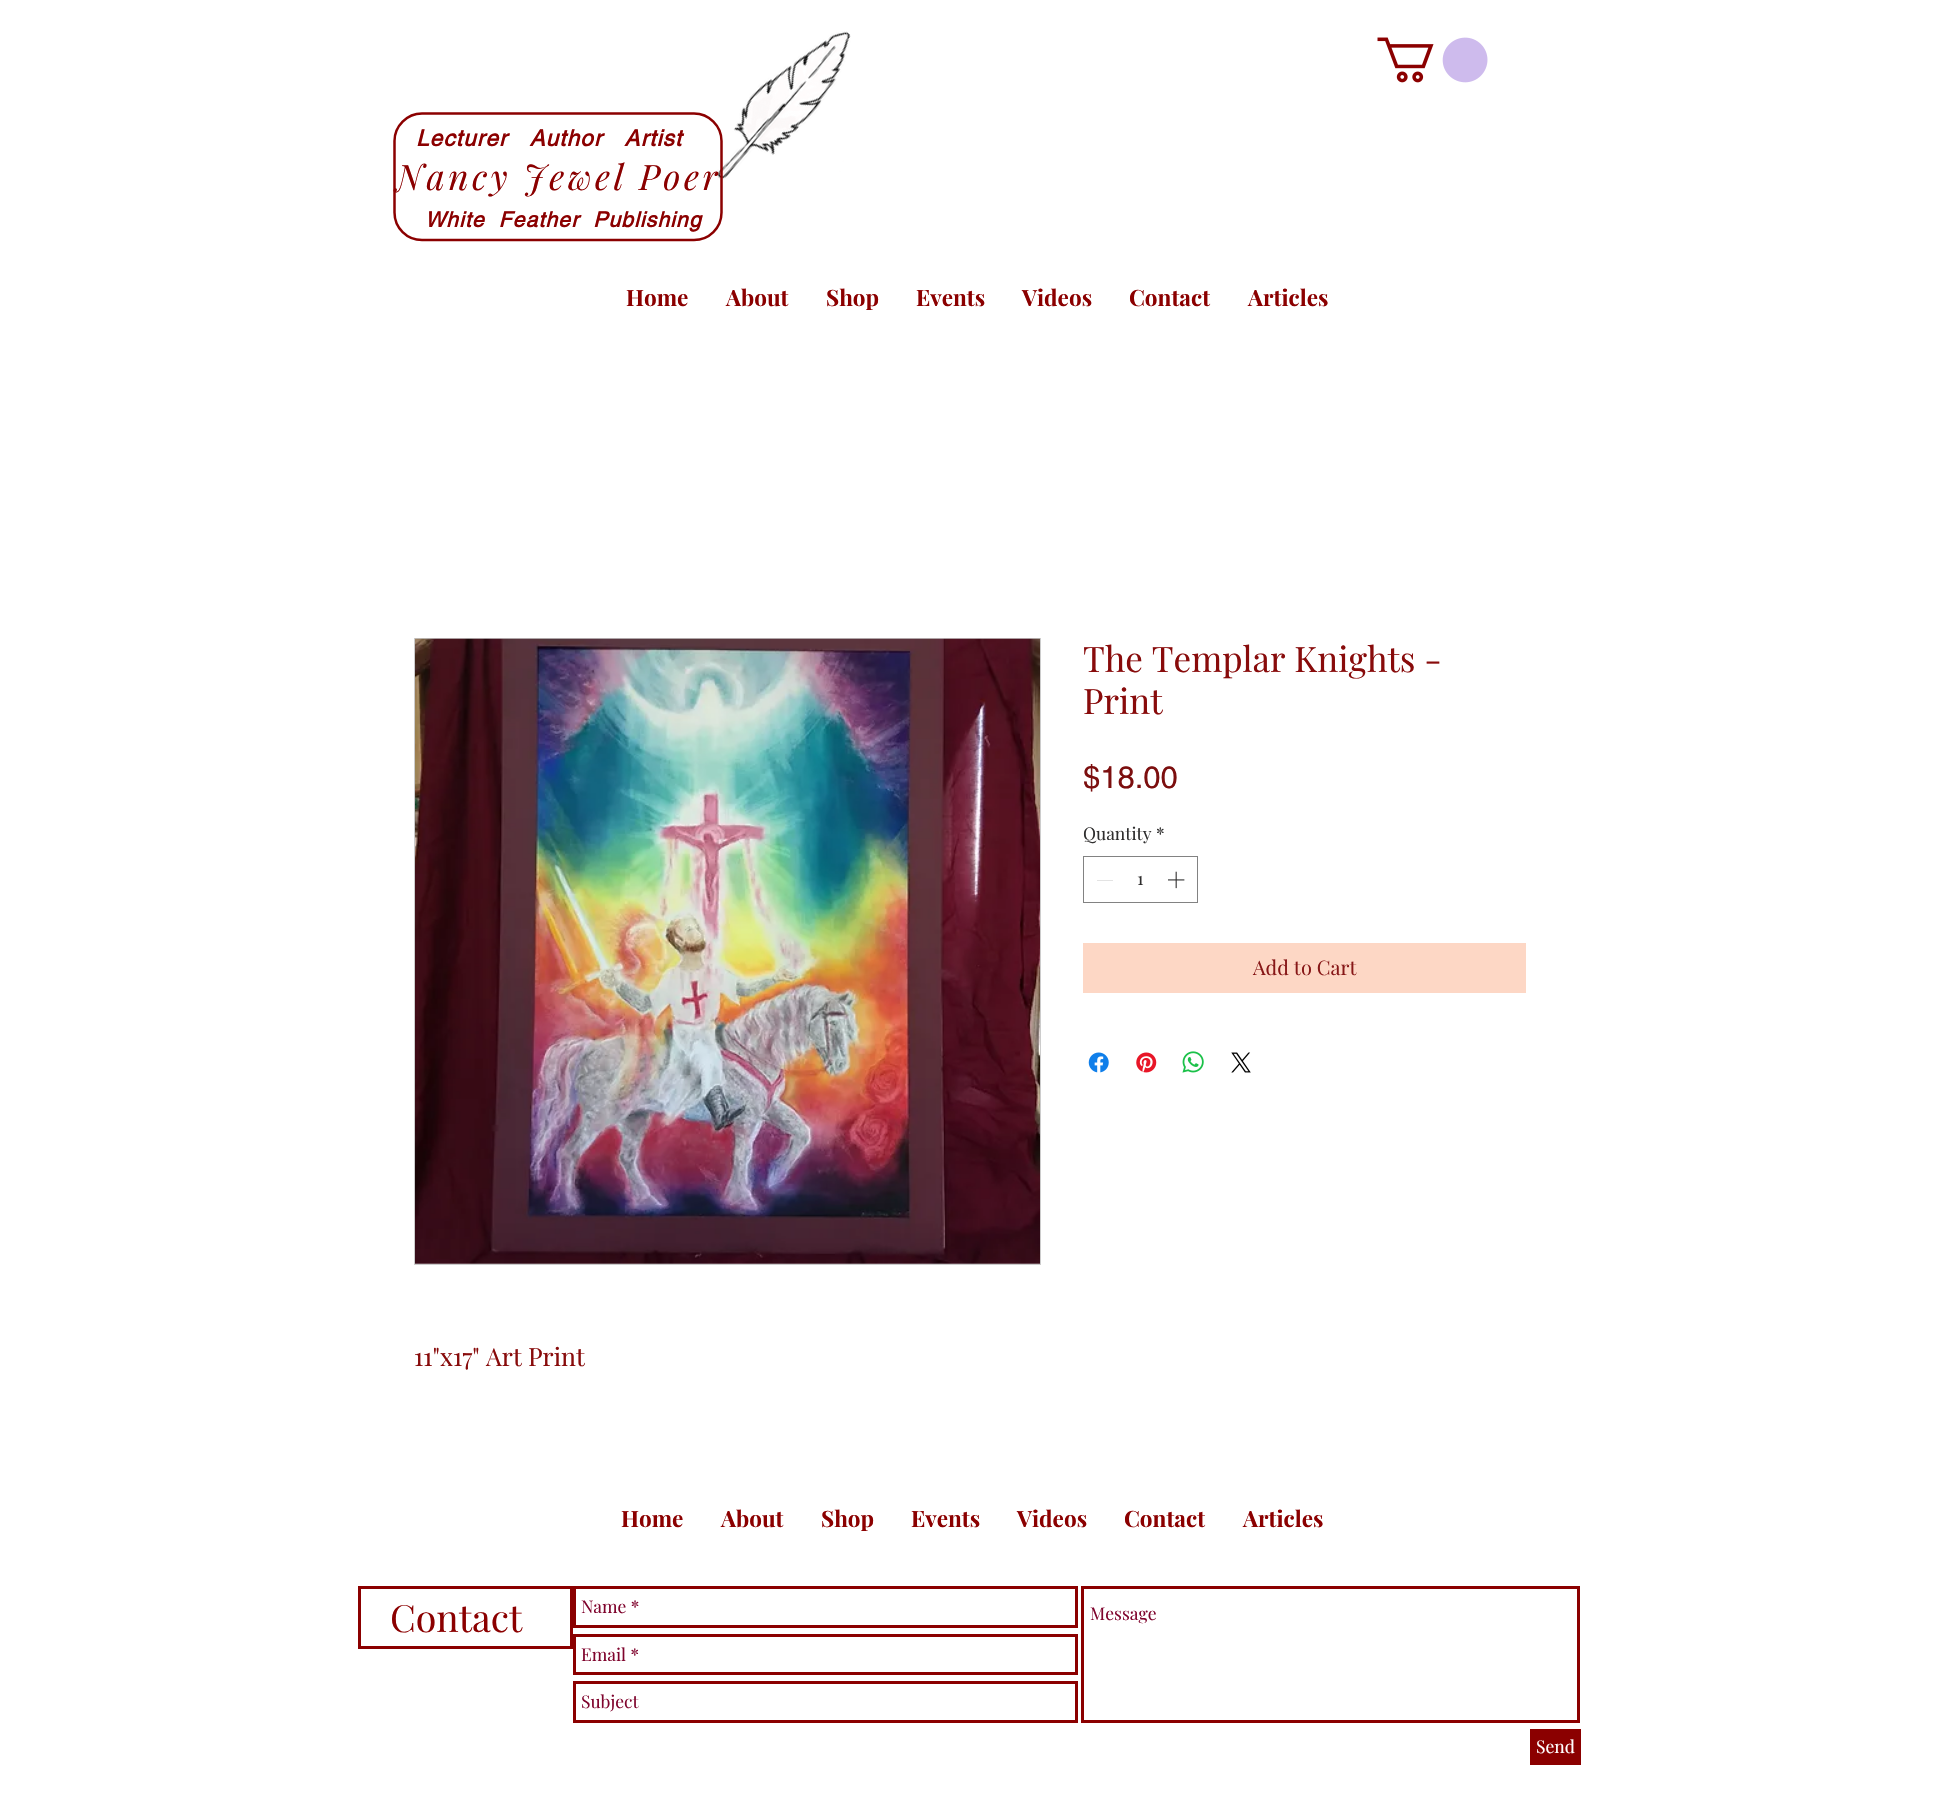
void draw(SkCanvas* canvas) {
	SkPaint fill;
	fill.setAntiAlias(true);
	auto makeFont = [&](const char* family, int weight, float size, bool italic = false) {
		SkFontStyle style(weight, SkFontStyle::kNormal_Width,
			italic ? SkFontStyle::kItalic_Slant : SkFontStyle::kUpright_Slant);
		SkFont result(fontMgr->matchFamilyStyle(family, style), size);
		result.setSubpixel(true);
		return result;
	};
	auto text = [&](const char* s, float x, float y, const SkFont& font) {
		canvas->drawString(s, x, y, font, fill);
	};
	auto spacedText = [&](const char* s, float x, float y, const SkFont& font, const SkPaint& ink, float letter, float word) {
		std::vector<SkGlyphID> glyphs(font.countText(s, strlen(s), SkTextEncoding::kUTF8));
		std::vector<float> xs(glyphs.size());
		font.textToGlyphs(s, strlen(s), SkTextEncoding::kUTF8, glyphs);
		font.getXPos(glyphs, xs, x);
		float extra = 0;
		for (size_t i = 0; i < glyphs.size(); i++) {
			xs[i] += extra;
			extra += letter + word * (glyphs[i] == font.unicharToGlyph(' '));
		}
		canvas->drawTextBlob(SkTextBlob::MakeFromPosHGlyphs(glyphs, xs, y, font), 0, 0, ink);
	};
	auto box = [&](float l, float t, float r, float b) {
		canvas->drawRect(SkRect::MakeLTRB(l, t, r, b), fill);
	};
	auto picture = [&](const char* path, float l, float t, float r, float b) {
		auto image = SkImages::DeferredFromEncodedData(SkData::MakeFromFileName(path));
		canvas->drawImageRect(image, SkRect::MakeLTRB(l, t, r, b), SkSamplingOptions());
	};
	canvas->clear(0xFFFFFFFF);
	picture("image0.png", 717, 31, 851, 180);
	picture("image1.png", 1377, 37, 1488, 83);
	fill.setStyle(SkPaint::kStroke_Style);
	fill.setStrokeWidth(2.5f);
	fill.setColor(0xFF8B0000);
	canvas->drawPath(SkPathBuilder().moveTo(694, 240).lineTo(422, 240).cubicTo(407, 240, 394.5f, 228, 394.5f, 212.5f).lineTo(394.5f, 141).cubicTo(394.5f, 126, 407, 113.5f, 422, 113.5f).lineTo(694, 113.5f).cubicTo(709, 113.5f, 721.5f, 126, 721.5f, 141).lineTo(721.5f, 212.5f).cubicTo(721.5f, 228, 709, 240, 694, 240).close().detach(), fill);
	fill.setStrokeWidth(1);
	fill.setColor(0xFF828282);
	canvas->drawRect(SkRect::MakeLTRB(1083.5f, 856.5f, 1197.5f, 902.5f), fill);
	fill.setStyle(SkPaint::kFill_Style);
	fill.setColor(0xFFE3E3E3);
	box(1097, 880, 1113, 881);
	picture("image2.png", 1168, 871, 1185, 889);
	fill.setColor(0xFFFDD7C5);
	box(1083, 943, 1526, 993);
	picture("image3.png", 1088, 1052, 1109, 1073);
	picture("image4.png", 1136, 1052, 1157, 1073);
	picture("image5.png", 1182, 1051, 1204, 1073);
	picture("image6.png", 1231, 1052, 1251, 1073);
	fill.setStyle(SkPaint::kStroke_Style);
	fill.setColor(0xFFCCCCCC);
	canvas->drawRect(SkRect::MakeLTRB(414.5f, 638.5f, 1040.5f, 1264.5f), fill);
	picture("image7.png", 415, 638, 1040, 1264);
	fill.setStrokeWidth(3);
	fill.setColor(0xFF8B0000);
	canvas->drawRect(SkRect::MakeLTRB(359.5f, 1587.5f, 571.5f, 1647.5f), fill);
	canvas->drawRect(SkRect::MakeLTRB(574.5f, 1587.5f, 1076.5f, 1626.5f), fill);
	canvas->drawRect(SkRect::MakeLTRB(1082.5f, 1587.5f, 1578.5f, 1721.5f), fill);
	canvas->drawRect(SkRect::MakeLTRB(574.5f, 1635.5f, 1076.5f, 1673.5f), fill);
	canvas->drawRect(SkRect::MakeLTRB(574.5f, 1682.5f, 1076.5f, 1721.5f), fill);
	fill.setStyle(SkPaint::kFill_Style);
	box(1530, 1729, 1581, 1765);
	auto font1 = makeFont("helvetica", 700, 22.5f, true);
	spacedText("Lecturer   Author   Artist", 416, 146, font1, fill, 1.1f, 0);
	auto font2 = makeFont("Playfair Display", 400, 35, true);
	spacedText("Nancy Jewel Poer", 396, 190, font2, fill, 3.5f, 0);
	auto font3 = makeFont("helvetica", 700, 21.25f, true);
	spacedText("White  Feather  Publishing", 425, 227, font3, fill, 1.05f, 0);
	auto font4 = makeFont("Playfair Display", 700, 22.5f);
	text("Home", 626, 306, font4);
	text("About", 726, 306, font4);
	text("Shop", 826, 306, font4);
	text("Events", 916, 306, font4);
	text("Videos", 1022, 306, font4);
	text("Contact", 1129, 306, font4);
	text("Articles", 1248, 306, font4);
	auto font5 = makeFont("Playfair Display", 400, 35);
	fill.setColor(0xFF880B0B);
	text("The Templar Knights -", 1083, 672, font5);
	text("Print", 1083, 714, font5);
	auto font6 = makeFont("helvetica", 400, 31);
	fill.setColor(0xFF7C0F0F);
	text("$18.00", 1083, 788, font6);
	auto font7 = makeFont("Playfair Display", 400, 17.5f);
	fill.setColor(0xFF2F2E2E);
	text("Quantity", 1083, 840, font7);
	text("*", 1156, 840, font7);
	text("1", 1137, 885, font7);
	auto font8 = makeFont("Playfair Display", 400, 20);
	fill.setColor(0xFF871717);
	text("Add to Cart", 1253, 975, font8);
	auto font9 = makeFont("Playfair Display", 400, 25);
	fill.setColor(0xFF880B0B);
	text("11\"x17\" Art Print", 414, 1366, font9);
	fill.setColor(0xFF8B0000);
	text("Home", 621, 1527, font4);
	text("About", 721, 1527, font4);
	text("Shop", 821, 1527, font4);
	text("Events", 911, 1527, font4);
	text("Videos", 1017, 1527, font4);
	text("Contact", 1124, 1527, font4);
	text("Articles", 1243, 1527, font4);
	auto font10 = makeFont("Playfair Display", 400, 37.5f);
	text("Contact", 390, 1632, font10);
	fill.setColor(0xFF7F042D);
	text("Name *", 581, 1613, font7);
	text("Message", 1090, 1620, font7);
	text("Email *", 581, 1661, font7);
	text("Subject", 581, 1708, font7);
	fill.setColor(0xFFFFFFFF);
	text("Send", 1536, 1753, font7);
}
